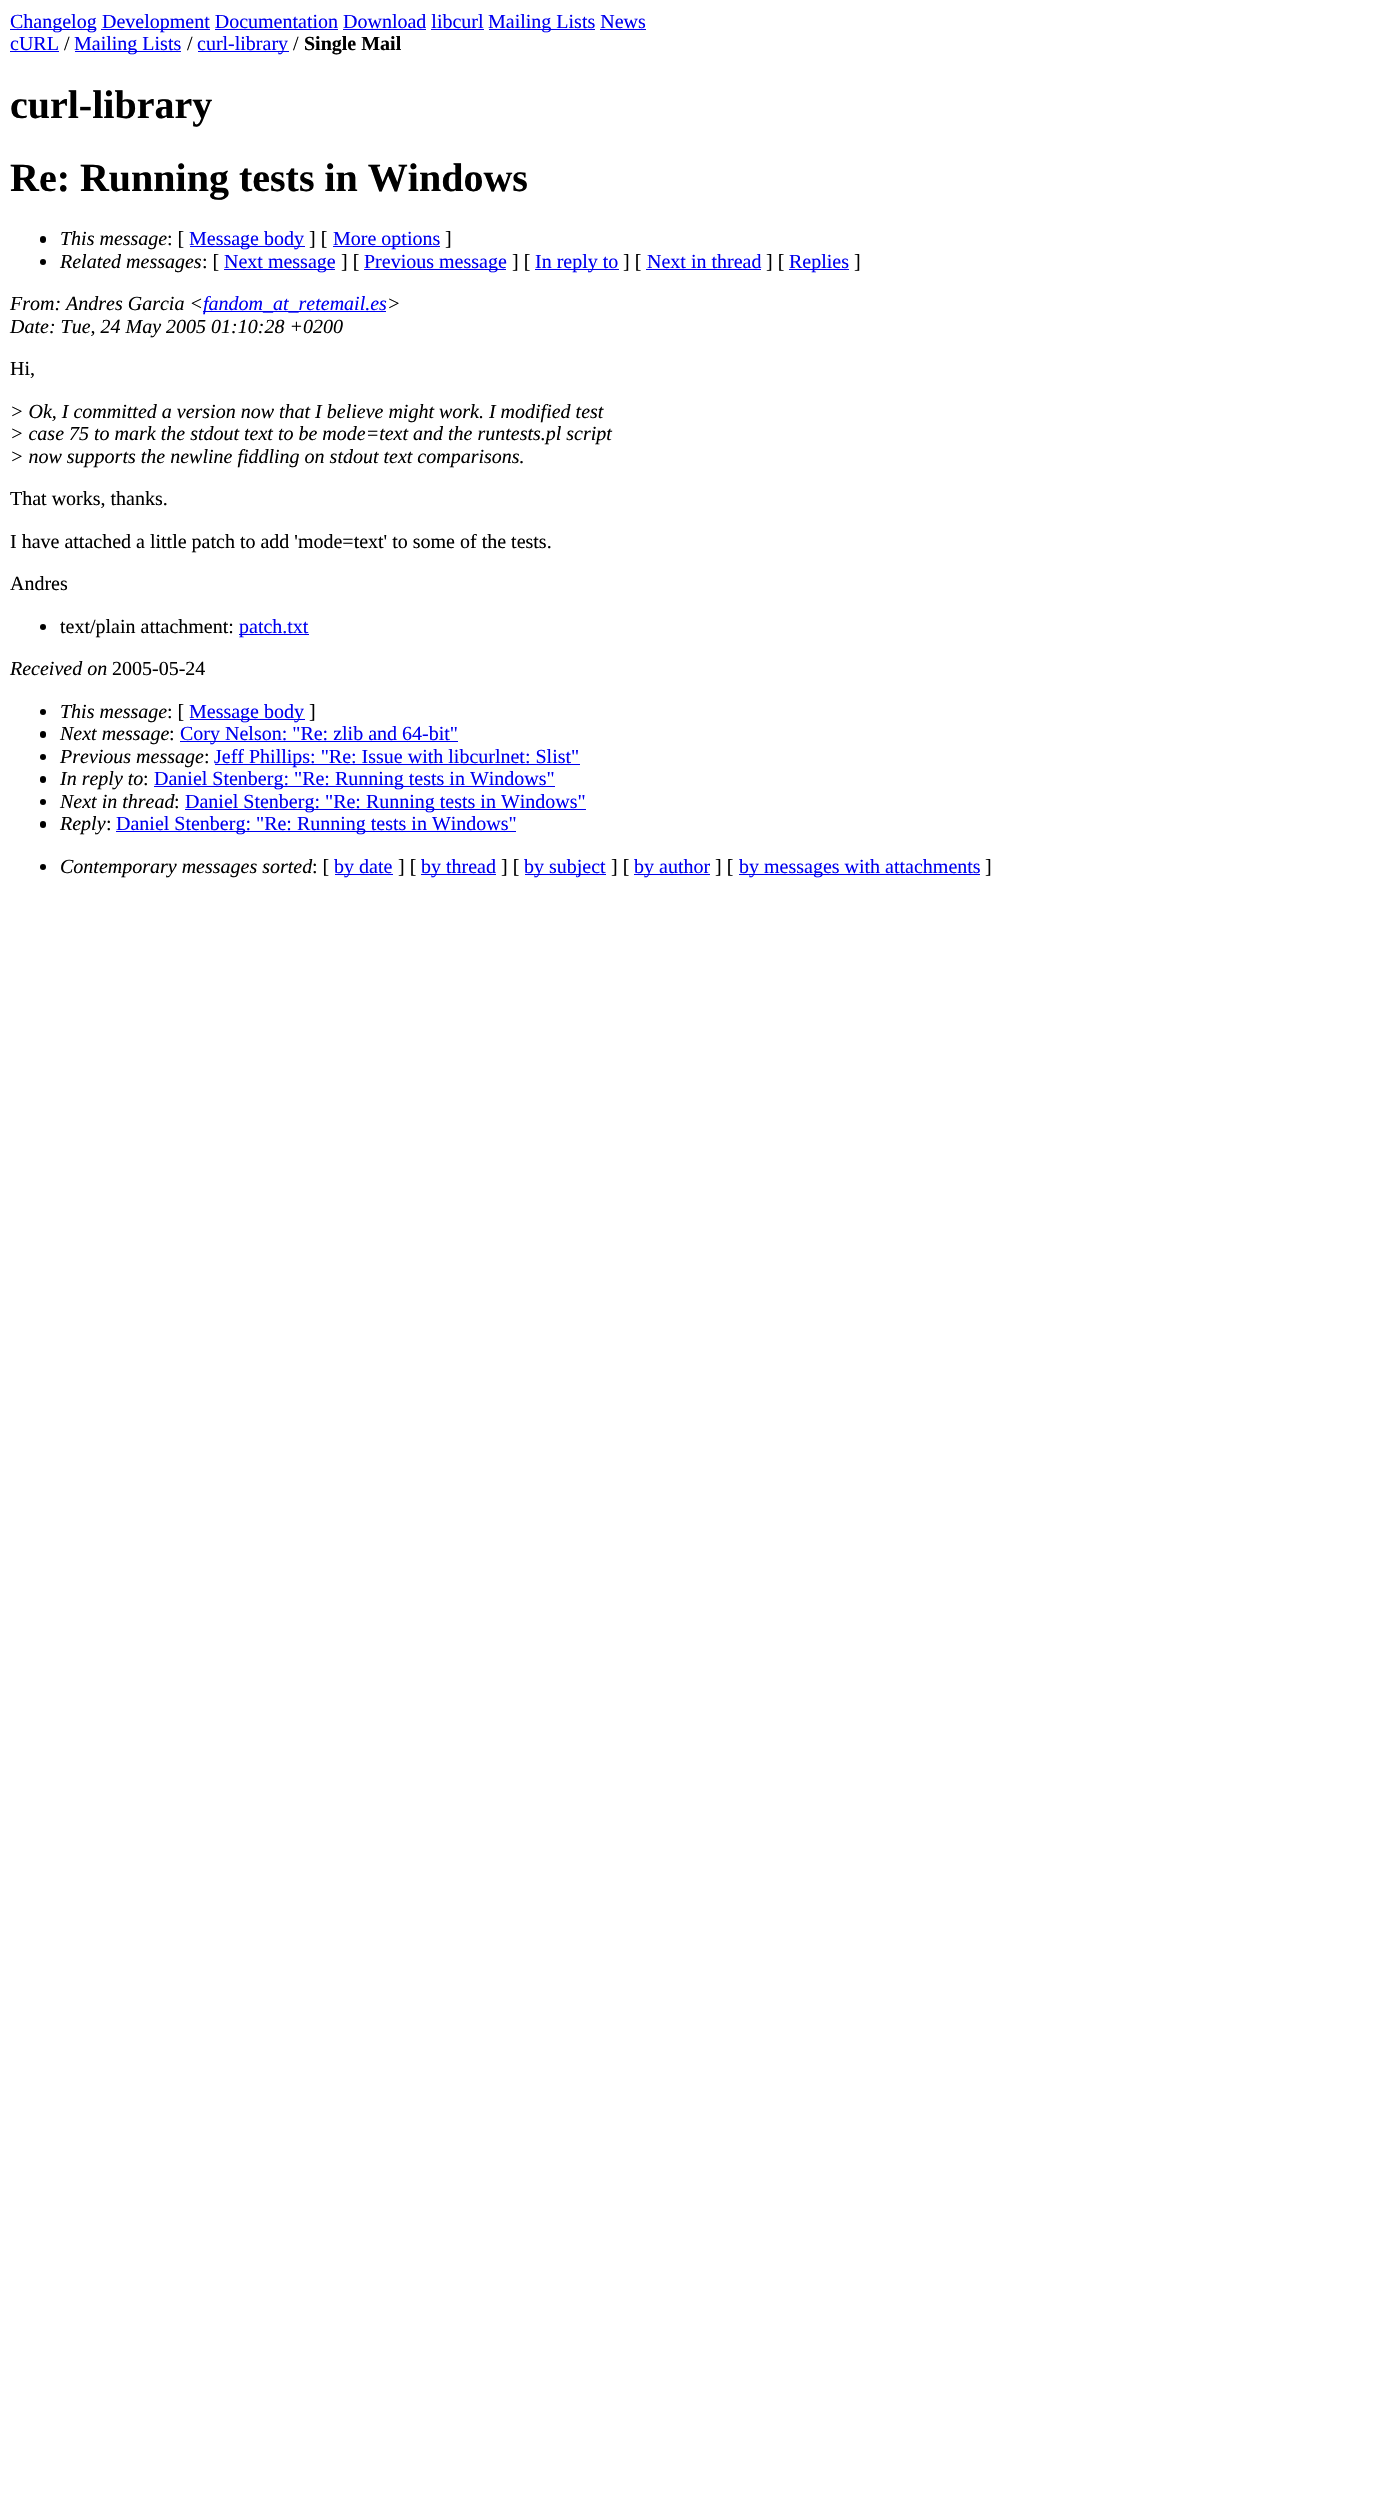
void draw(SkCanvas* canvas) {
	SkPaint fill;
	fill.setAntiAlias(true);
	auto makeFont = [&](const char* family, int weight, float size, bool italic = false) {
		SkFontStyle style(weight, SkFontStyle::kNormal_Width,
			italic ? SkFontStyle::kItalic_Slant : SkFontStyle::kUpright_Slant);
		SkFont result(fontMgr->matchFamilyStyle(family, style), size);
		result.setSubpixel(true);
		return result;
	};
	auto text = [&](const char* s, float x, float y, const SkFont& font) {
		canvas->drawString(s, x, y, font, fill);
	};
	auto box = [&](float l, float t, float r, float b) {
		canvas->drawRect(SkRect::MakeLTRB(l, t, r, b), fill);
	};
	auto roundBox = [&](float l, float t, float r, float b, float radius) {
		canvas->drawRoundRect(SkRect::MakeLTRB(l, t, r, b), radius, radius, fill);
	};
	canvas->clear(0xFFFFFFFF);
	fill.setColor(0xFF0000EE);
	box(10, 29, 96, 30);
	box(101, 29, 210, 30);
	box(489, 29, 595, 30);
	box(215, 29, 338, 30);
	box(343, 29, 426, 30);
	box(431, 29, 484, 30);
	box(600, 29, 646, 30);
	box(10, 51, 59, 52);
	box(75, 51, 181, 52);
	box(198, 51, 289, 52);
	fill.setColor(0xFF000000);
	roundBox(40, 236, 46, 243, 3);
	fill.setColor(0xFF0000EE);
	box(190, 246, 305, 247);
	box(333, 246, 440, 247);
	fill.setColor(0xFF000000);
	canvas->drawCircle(43, 262, 3, fill);
	fill.setColor(0xFF0000EE);
	box(224, 269, 335, 270);
	box(364, 269, 506, 270);
	box(535, 269, 619, 270);
	box(646, 269, 761, 270);
	box(789, 269, 849, 270);
	box(203, 311, 386, 312);
	fill.setColor(0xFF000000);
	canvas->drawCircle(43, 627, 3, fill);
	fill.setColor(0xFF0000EE);
	box(239, 634, 309, 635);
	fill.setColor(0xFF000000);
	canvas->drawCircle(43, 712, 3, fill);
	fill.setColor(0xFF0000EE);
	box(190, 719, 305, 720);
	fill.setColor(0xFF000000);
	roundBox(40, 731, 46, 738, 3);
	fill.setColor(0xFF0000EE);
	box(180, 741, 458, 742);
	fill.setColor(0xFF000000);
	canvas->drawCircle(43, 757, 3, fill);
	fill.setColor(0xFF0000EE);
	box(215, 764, 580, 765);
	fill.setColor(0xFF000000);
	roundBox(40, 776, 46, 783, 3);
	fill.setColor(0xFF0000EE);
	box(154, 786, 555, 787);
	fill.setColor(0xFF000000);
	canvas->drawCircle(43, 802, 3, fill);
	fill.setColor(0xFF0000EE);
	box(185, 809, 586, 810);
	fill.setColor(0xFF000000);
	roundBox(40, 821, 46, 828, 3);
	fill.setColor(0xFF0000EE);
	box(116, 831, 516, 832);
	fill.setColor(0xFF000000);
	canvas->drawCircle(43, 867, 3, fill);
	fill.setColor(0xFF0000EE);
	box(335, 874, 393, 875);
	box(421, 874, 496, 875);
	box(525, 874, 606, 875);
	box(634, 874, 710, 875);
	box(739, 874, 980, 875);
	auto font1 = makeFont("Liberation Serif", 400, 20);
	text("Changelog", 10, 28, font1);
	text("Development Documentation Download libcurl", 102, 28, font1);
	text("Mailing Lists News", 488, 28, font1);
	text("cURL", 10, 50, font1);
	fill.setColor(0xFF000000);
	text("/", 64, 50, font1);
	fill.setColor(0xFF0000EE);
	text("Mailing Lists", 74, 50, font1);
	fill.setColor(0xFF000000);
	text("/", 187, 50, font1);
	fill.setColor(0xFF0000EE);
	text("curl-library", 197, 50, font1);
	fill.setColor(0xFF000000);
	text("/", 293, 50, font1);
	auto font2 = makeFont("Liberation Serif", 700, 20);
	text("Single Mail", 304, 50, font2);
	auto font3 = makeFont("Liberation Serif", 700, 40);
	text("curl-library", 10, 118, font3);
	text("Re: Running tests in Windows", 10, 191, font3);
	auto font4 = makeFont("Liberation Serif", 400, 20, true);
	text("This message", 60, 245, font4);
	text(": [", 167, 245, font1);
	fill.setColor(0xFF0000EE);
	text("Message body", 189, 245, font1);
	fill.setColor(0xFF000000);
	text("] [", 309, 245, font1);
	fill.setColor(0xFF0000EE);
	text("More options", 333, 245, font1);
	fill.setColor(0xFF000000);
	text("]", 445, 245, font1);
	text("Related messages", 60, 268, font4);
	text(": [", 202, 268, font1);
	fill.setColor(0xFF0000EE);
	text("Next message", 224, 268, font1);
	fill.setColor(0xFF000000);
	text("] [", 341, 268, font1);
	fill.setColor(0xFF0000EE);
	text("Previous message", 364, 268, font1);
	fill.setColor(0xFF000000);
	text("] [", 512, 268, font1);
	fill.setColor(0xFF0000EE);
	text("In reply to", 535, 268, font1);
	fill.setColor(0xFF000000);
	text("] [", 623, 268, font1);
	fill.setColor(0xFF0000EE);
	text("Next in thread", 647, 268, font1);
	fill.setColor(0xFF000000);
	text("] [", 766, 268, font1);
	fill.setColor(0xFF0000EE);
	text("Replies", 789, 268, font1);
	fill.setColor(0xFF000000);
	text("]", 854, 268, font1);
	text("From: Andres Garcia <", 10, 310, font4);
	fill.setColor(0xFF0000EE);
	text("fandom_at_retemail.es", 203, 310, font4);
	fill.setColor(0xFF000000);
	text(">", 387, 310, font4);
	text("Date: Tue, 24 May 2005 01:10:28 +0200", 10, 333, font4);
	text("Hi,", 10, 375, font1);
	text("> Ok, I committed a version now that I believe might work. I modified test", 10, 418, font4);
	text("> case 75 to mark the stdout text to be mode=text and the runtests.pl script", 10, 440, font4);
	text("> now supports the newline fiddling on stdout text comparisons.", 10, 463, font4);
	text("That works, thanks.", 10, 505, font1);
	text("I have attached a little patch to add 'mode=text' to some of the tests.", 10, 548, font1);
	text("Andres", 10, 590, font1);
	text("text/plain attachment:", 60, 633, font1);
	fill.setColor(0xFF0000EE);
	text("patch.txt", 239, 633, font1);
	fill.setColor(0xFF000000);
	text("Received on", 10, 675, font4);
	text("2005-05-24", 112, 675, font1);
	text("This message", 60, 718, font4);
	text(": [", 167, 718, font1);
	fill.setColor(0xFF0000EE);
	text("Message body", 189, 718, font1);
	fill.setColor(0xFF000000);
	text("]", 309, 718, font1);
	text("Next message", 60, 740, font4);
	text(":", 169, 740, font1);
	fill.setColor(0xFF0000EE);
	text("Cory Nelson: \"Re: zlib and 64-bit\"", 180, 740, font1);
	fill.setColor(0xFF000000);
	text("Previous message", 60, 763, font4);
	text(":", 204, 763, font1);
	fill.setColor(0xFF0000EE);
	text("Jeff Phillips: \"Re: Issue with libcurlnet: Slist\"", 214, 763, font1);
	fill.setColor(0xFF000000);
	text("In reply to", 60, 785, font4);
	text(":", 143, 785, font1);
	fill.setColor(0xFF0000EE);
	text("Daniel Stenberg: \"Re: Running tests in Windows\"", 154, 785, font1);
	fill.setColor(0xFF000000);
	text("Next in thread", 60, 808, font4);
	text(":", 174, 808, font1);
	fill.setColor(0xFF0000EE);
	text("Daniel Stenberg: \"Re: Running tests in Windows\"", 185, 808, font1);
	fill.setColor(0xFF000000);
	text("Reply", 60, 830, font4);
	text(":", 106, 830, font1);
	fill.setColor(0xFF0000EE);
	text("Daniel Stenberg: \"Re: Running tests in Windows\"", 116, 830, font1);
	fill.setColor(0xFF000000);
	text("Contemporary messages sorted", 60, 873, font4);
	text(": [", 312, 873, font1);
	fill.setColor(0xFF0000EE);
	text("by date", 334, 873, font1);
	fill.setColor(0xFF000000);
	text("] [", 398, 873, font1);
	fill.setColor(0xFF0000EE);
	text("by thread", 421, 873, font1);
	fill.setColor(0xFF000000);
	text("] [", 501, 873, font1);
	fill.setColor(0xFF0000EE);
	text("by subject", 524, 873, font1);
	fill.setColor(0xFF000000);
	text("] [", 611, 873, font1);
	fill.setColor(0xFF0000EE);
	text("by author", 634, 873, font1);
	fill.setColor(0xFF000000);
	text("] [", 715, 873, font1);
	fill.setColor(0xFF0000EE);
	text("by messages with attachments", 739, 873, font1);
	fill.setColor(0xFF000000);
	text("]", 985, 873, font1);
}
